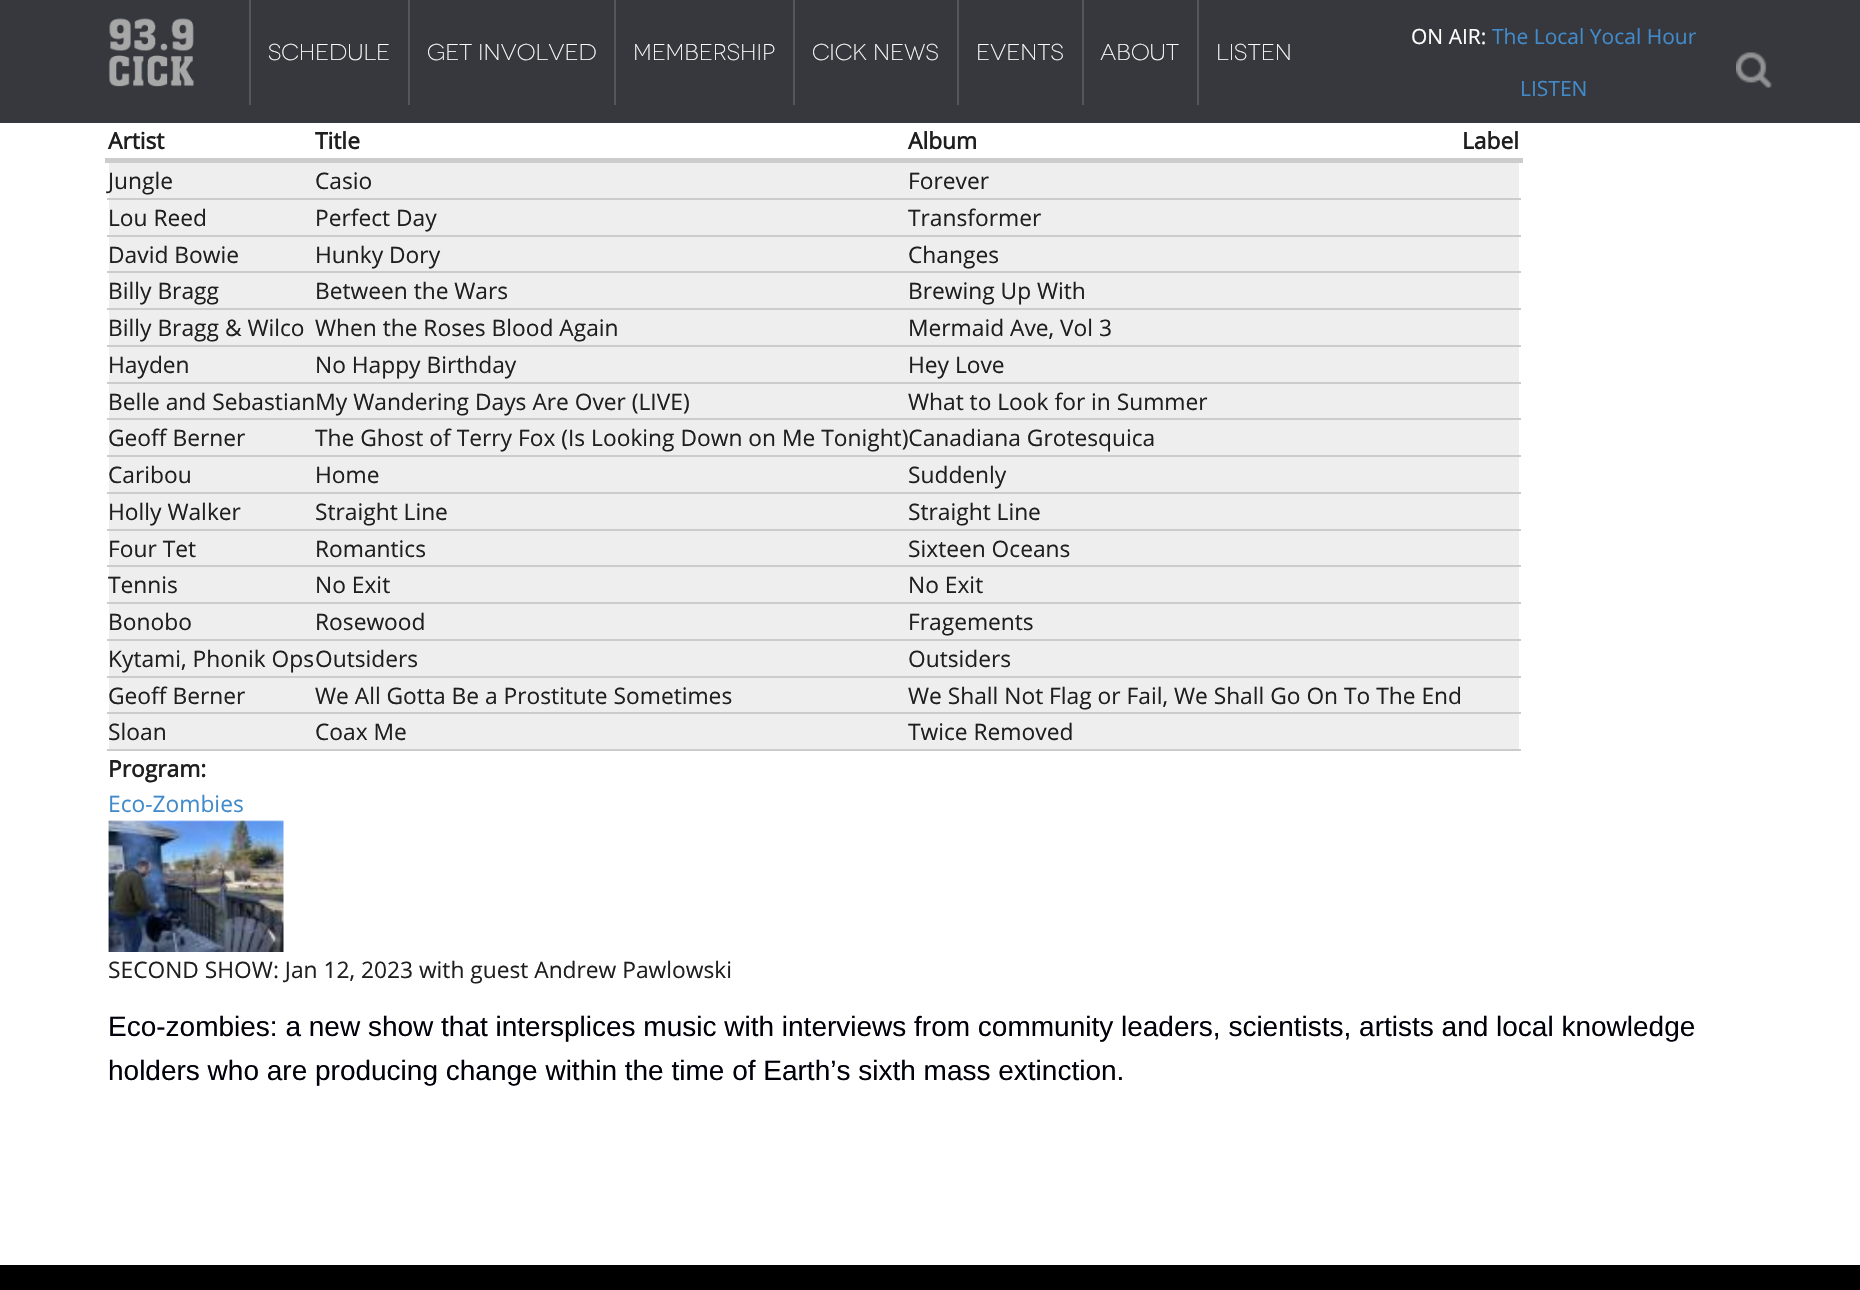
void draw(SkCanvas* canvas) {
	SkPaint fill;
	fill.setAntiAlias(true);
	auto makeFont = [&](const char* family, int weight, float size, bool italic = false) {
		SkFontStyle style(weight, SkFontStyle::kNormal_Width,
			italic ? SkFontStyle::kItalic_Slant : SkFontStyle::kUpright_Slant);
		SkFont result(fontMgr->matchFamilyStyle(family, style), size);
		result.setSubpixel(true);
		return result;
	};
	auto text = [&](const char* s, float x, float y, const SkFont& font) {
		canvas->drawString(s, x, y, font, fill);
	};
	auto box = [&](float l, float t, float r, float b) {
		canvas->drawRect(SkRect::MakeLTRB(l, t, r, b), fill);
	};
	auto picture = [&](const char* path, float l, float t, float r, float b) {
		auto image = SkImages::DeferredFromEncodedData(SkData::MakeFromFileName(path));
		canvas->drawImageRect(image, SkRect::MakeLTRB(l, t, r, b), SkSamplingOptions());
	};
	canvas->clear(0xFF37383D);
	picture("image0.png", 108, 18, 194, 87);
	fill.setColor(0xFF55565A);
	box(249, 0, 251, 105);
	box(408, 0, 410, 105);
	box(614, 0, 616, 105);
	box(793, 0, 795, 105);
	box(957, 0, 959, 105);
	box(1082, 0, 1084, 105);
	box(1197, 0, 1199, 105);
	picture("image1.png", 1736, 52, 1772, 88);
	fill.setColor(0xFFFFFFFF);
	box(0, 123, 1860, 1265);
	fill.setColor(0xFFCCCCCC);
	box(105, 158, 1523, 163);
	fill.setColor(0xFFEEEEEE);
	box(109, 163, 1519, 198);
	fill.setColor(0xFFCCCCCC);
	box(107, 198, 1521, 200);
	fill.setColor(0xFFEEEEEE);
	box(109, 200, 1519, 235);
	fill.setColor(0xFFCCCCCC);
	box(107, 235, 1521, 237);
	fill.setColor(0xFFEEEEEE);
	box(109, 237, 1519, 271);
	fill.setColor(0xFFCCCCCC);
	box(107, 271, 1521, 273);
	fill.setColor(0xFFEEEEEE);
	box(109, 273, 1519, 308);
	fill.setColor(0xFFCCCCCC);
	box(107, 308, 1521, 310);
	fill.setColor(0xFFEEEEEE);
	box(109, 310, 1519, 345);
	fill.setColor(0xFFCCCCCC);
	box(107, 345, 1521, 347);
	fill.setColor(0xFFEEEEEE);
	box(109, 347, 1519, 382);
	fill.setColor(0xFFCCCCCC);
	box(107, 382, 1521, 384);
	fill.setColor(0xFFEEEEEE);
	box(109, 384, 1519, 418);
	fill.setColor(0xFFCCCCCC);
	box(107, 418, 1521, 420);
	fill.setColor(0xFFEEEEEE);
	box(109, 420, 1519, 455);
	fill.setColor(0xFFCCCCCC);
	box(107, 455, 1521, 457);
	fill.setColor(0xFFEEEEEE);
	box(109, 457, 1519, 492);
	fill.setColor(0xFFCCCCCC);
	box(107, 492, 1521, 494);
	fill.setColor(0xFFEEEEEE);
	box(109, 494, 1519, 529);
	fill.setColor(0xFFCCCCCC);
	box(107, 529, 1521, 531);
	fill.setColor(0xFFEEEEEE);
	box(109, 531, 1519, 565);
	fill.setColor(0xFFCCCCCC);
	box(107, 565, 1521, 567);
	fill.setColor(0xFFEEEEEE);
	box(109, 567, 1519, 602);
	fill.setColor(0xFFCCCCCC);
	box(107, 602, 1521, 604);
	fill.setColor(0xFFEEEEEE);
	box(109, 604, 1519, 639);
	fill.setColor(0xFFCCCCCC);
	box(107, 639, 1521, 641);
	fill.setColor(0xFFEEEEEE);
	box(109, 641, 1519, 676);
	fill.setColor(0xFFCCCCCC);
	box(107, 676, 1521, 678);
	fill.setColor(0xFFEEEEEE);
	box(109, 678, 1519, 712);
	fill.setColor(0xFFCCCCCC);
	box(107, 712, 1521, 714);
	fill.setColor(0xFFEEEEEE);
	box(109, 714, 1519, 749);
	fill.setColor(0xFFCCCCCC);
	box(107, 749, 1521, 751);
	picture("image2.png", 108, 820, 284, 952);
	fill.setColor(0xFF000000);
	box(0, 1265, 1860, 1290);
	auto font1 = makeFont("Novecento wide", 300, 22.75f);
	fill.setColor(0xFFFFFFFF);
	text("SCHEDULE", 268, 60, font1);
	text("GET INVOLVED", 427, 60, font1);
	text("MEMBERSHIP", 633, 60, font1);
	text("CICK NEWS", 812, 60, font1);
	text("EVENTS", 976, 60, font1);
	text("ABOUT", 1100, 60, font1);
	text("LISTEN", 1216, 60, font1);
	auto font2 = makeFont("Open Sans", 400, 21);
	text("ON AIR:", 1411, 44, font2);
	fill.setColor(0xFF428BCA);
	text("The Local Yocal Hour", 1492, 44, font2);
	text("LISTEN", 1520, 96, font2);
	auto font3 = makeFont("Open Sans", 700, 22.75f);
	fill.setColor(0xFF1F1F1F);
	text("Artist", 108, 149, font3);
	text("Title", 315, 149, font3);
	text("Album", 908, 149, font3);
	text("Label", 1462, 149, font3);
	auto font4 = makeFont("Open Sans", 400, 22.75f);
	text("Jungle", 108, 189, font4);
	text("Casio", 315, 189, font4);
	text("Forever", 908, 189, font4);
	text("Lou Reed", 108, 226, font4);
	text("Perfect Day", 315, 226, font4);
	text("Transformer", 908, 226, font4);
	text("David Bowie", 108, 263, font4);
	text("Hunky Dory", 315, 263, font4);
	text("Changes", 908, 263, font4);
	text("Billy Bragg", 108, 299, font4);
	text("Between the Wars", 315, 299, font4);
	text("Brewing Up With", 908, 299, font4);
	text("Billy Bragg & Wilco", 108, 336, font4);
	text("When the Roses Blood Again", 315, 336, font4);
	text("Mermaid Ave, Vol 3", 908, 336, font4);
	text("Hayden", 108, 373, font4);
	text("No Happy Birthday", 315, 373, font4);
	text("Hey Love", 908, 373, font4);
	text("Belle and SebastianMy Wandering Days Are Over (LIVE)", 108, 410, font4);
	text("What to Look for in Summer", 908, 410, font4);
	text("Geoff Berner", 108, 446, font4);
	text("The Ghost of Terry Fox (Is Looking Down on Me Tonight)Canadiana Grotesquica", 315, 446, font4);
	text("Caribou", 108, 483, font4);
	text("Home", 315, 483, font4);
	text("Suddenly", 908, 483, font4);
	text("Holly Walker", 108, 520, font4);
	text("Straight Line", 315, 520, font4);
	text("Straight Line", 908, 520, font4);
	text("Four Tet", 108, 557, font4);
	text("Romantics", 315, 557, font4);
	text("Sixteen Oceans", 908, 557, font4);
	text("Tennis", 108, 593, font4);
	text("No Exit", 315, 593, font4);
	text("No Exit", 908, 593, font4);
	text("Bonobo", 108, 630, font4);
	text("Rosewood", 315, 630, font4);
	text("Fragements", 908, 630, font4);
	text("Kytami, Phonik Ops", 108, 667, font4);
	text("Outsiders", 315, 667, font4);
	text("Outsiders", 908, 667, font4);
	text("Geoff Berner", 108, 704, font4);
	text("We All Gotta Be a Prostitute Sometimes", 315, 704, font4);
	text("We Shall Not Flag or Fail, We Shall Go On To The End", 908, 704, font4);
	text("Sloan", 108, 740, font4);
	text("Coax Me", 315, 740, font4);
	text("Twice Removed", 908, 740, font4);
	text("Program:", 108, 777, font3);
	fill.setColor(0xFF428BCA);
	text("Eco-Zombies", 108, 812, font4);
	fill.setColor(0xFF1F1F1F);
	text("SECOND SHOW: Jan 12, 2023 with guest Andrew Pawlowski", 108, 978, font4);
	auto font5 = makeFont("Liberation Sans", 400, 28);
	fill.setColor(0xFF00000A);
	text("Eco-zombies: a new show that intersplices music with interviews from community leaders, scientists, artists and local knowledge", 108, 1036, font5);
	text("holders who are producing change within the time of Earth’s sixth mass extinction.", 108, 1080, font5);
}
